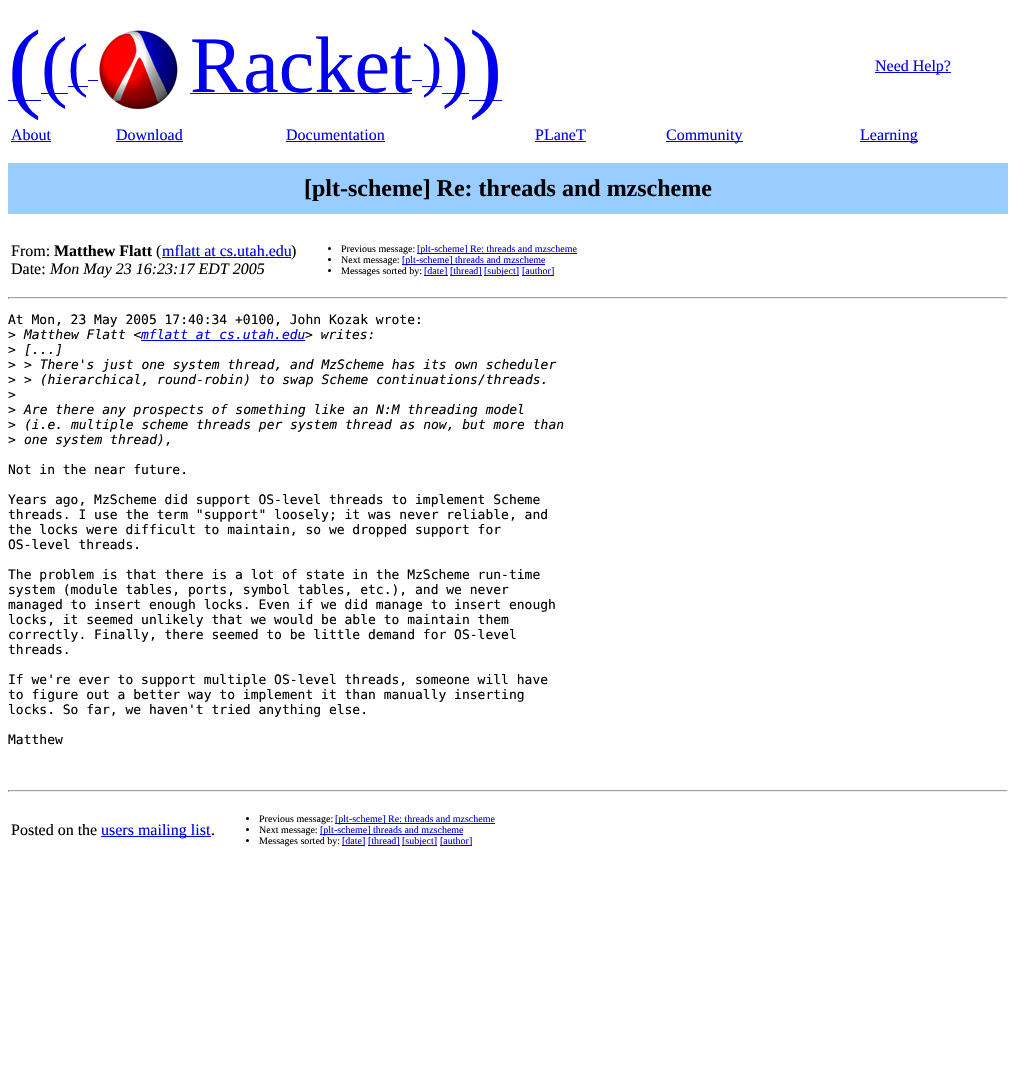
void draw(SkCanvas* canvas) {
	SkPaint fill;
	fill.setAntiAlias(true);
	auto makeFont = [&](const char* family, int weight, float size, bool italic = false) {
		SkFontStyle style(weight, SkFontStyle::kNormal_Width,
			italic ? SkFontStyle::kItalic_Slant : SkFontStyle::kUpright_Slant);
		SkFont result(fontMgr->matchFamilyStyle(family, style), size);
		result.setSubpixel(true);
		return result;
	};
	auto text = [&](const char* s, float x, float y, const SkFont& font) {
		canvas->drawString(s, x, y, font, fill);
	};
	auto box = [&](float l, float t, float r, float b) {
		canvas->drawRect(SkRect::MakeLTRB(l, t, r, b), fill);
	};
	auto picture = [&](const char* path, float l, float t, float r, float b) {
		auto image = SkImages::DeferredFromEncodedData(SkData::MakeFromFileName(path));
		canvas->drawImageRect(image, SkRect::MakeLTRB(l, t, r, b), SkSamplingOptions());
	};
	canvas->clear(0xFFFFFFFF);
	fill.setColor(0xFF0000EE);
	box(8, 100, 41, 101);
	box(41, 93, 68, 94);
	box(68, 86, 88, 87);
	box(88, 80, 98, 81);
	picture("image0.png", 99, 30, 178, 110);
	box(190, 93, 412, 94);
	box(412, 80, 422, 81);
	box(422, 86, 442, 87);
	box(442, 93, 469, 94);
	box(469, 100, 502, 101);
	box(875, 72, 951, 73);
	box(11, 141, 51, 142);
	box(116, 141, 183, 142);
	box(286, 141, 385, 142);
	box(535, 141, 586, 142);
	box(666, 141, 743, 142);
	box(860, 141, 918, 142);
	fill.setColor(0xFF99CCFF);
	box(8, 163, 1008, 214);
	fill.setColor(0xFF0000EE);
	box(162, 257, 291, 258);
	fill.setColor(0xFF000000);
	canvas->drawCircle(329.5f, 248.5f, 1.5f, fill);
	fill.setColor(0xFF0000EE);
	box(417, 253, 577, 254);
	fill.setColor(0xFF000000);
	canvas->drawCircle(329.5f, 259.5f, 1.5f, fill);
	fill.setColor(0xFF0000EE);
	box(402, 264, 545, 265);
	fill.setColor(0xFF000000);
	canvas->drawCircle(329.5f, 270.5f, 1.5f, fill);
	fill.setColor(0xFF0000EE);
	box(424, 275, 448, 276);
	box(450, 275, 482, 276);
	box(484, 275, 519, 276);
	box(522, 275, 554, 276);
	fill.setColor(0xFF9F9F9F);
	box(8, 297, 1008, 298);
	fill.setColor(0xFFEEEEEE);
	box(1007, 297, 1008, 299);
	box(8, 298, 1008, 299);
	fill.setColor(0xFF9F9F9F);
	box(8, 297, 9, 299);
	fill.setColor(0xFF0000EE);
	box(141, 340, 305, 341);
	fill.setColor(0xFF9F9F9F);
	box(8, 790, 1008, 791);
	fill.setColor(0xFFEEEEEE);
	box(1007, 790, 1008, 792);
	box(8, 791, 1008, 792);
	fill.setColor(0xFF9F9F9F);
	box(8, 790, 9, 792);
	fill.setColor(0xFF0000EE);
	box(101, 836, 211, 837);
	fill.setColor(0xFF000000);
	canvas->drawCircle(247.5f, 818.5f, 1.5f, fill);
	fill.setColor(0xFF0000EE);
	box(335, 823, 495, 824);
	fill.setColor(0xFF000000);
	canvas->drawCircle(247.5f, 829.5f, 1.5f, fill);
	fill.setColor(0xFF0000EE);
	box(320, 834, 463, 835);
	fill.setColor(0xFF000000);
	canvas->drawCircle(247.5f, 840.5f, 1.5f, fill);
	fill.setColor(0xFF0000EE);
	box(342, 845, 365, 846);
	box(368, 845, 400, 846);
	box(402, 845, 437, 846);
	box(440, 845, 472, 846);
	auto font1 = makeFont("Liberation Serif", 400, 100);
	text("(", 8, 99, font1);
	auto font2 = makeFont("Liberation Serif", 400, 80);
	text("(", 41, 92, font2);
	auto font3 = makeFont("Liberation Serif", 400, 60);
	text("(", 68, 85, font3);
	text("Racket", 190, 92, font2);
	text(")", 422, 85, font3);
	text(")", 442, 92, font2);
	text(")", 469, 99, font1);
	auto font4 = makeFont("Liberation Serif", 400, 16);
	text("Need Help?", 875, 71, font4);
	text("About", 11, 140, font4);
	text("Download", 116, 140, font4);
	text("Documentation", 286, 140, font4);
	text("PLaneT", 535, 140, font4);
	text("Community", 666, 140, font4);
	text("Learning", 860, 140, font4);
	auto font5 = makeFont("Liberation Serif", 700, 24);
	fill.setColor(0xFF000000);
	text("[plt-scheme] Re: threads and mzscheme", 304, 196, font5);
	text("From:", 11, 256, font4);
	auto font6 = makeFont("Liberation Serif", 700, 16);
	text("Matthew Flatt", 54, 256, font6);
	text("(", 156, 256, font4);
	fill.setColor(0xFF0000EE);
	text("mflatt at cs.utah.edu", 162, 256, font4);
	fill.setColor(0xFF000000);
	text(")", 291, 256, font4);
	text("Date:", 11, 274, font4);
	auto font7 = makeFont("Liberation Serif", 400, 16, true);
	text("Mon May 23 16:23:17 EDT 2005", 50, 274, font7);
	auto font8 = makeFont("Liberation Serif", 400, 10);
	text("Previous message:", 341, 252, font8);
	fill.setColor(0xFF0000EE);
	text("[plt-scheme] Re: threads and mzscheme", 417, 252, font8);
	fill.setColor(0xFF000000);
	text("Next message:", 341, 263, font8);
	fill.setColor(0xFF0000EE);
	text("[plt-scheme] threads and mzscheme", 402, 263, font8);
	fill.setColor(0xFF000000);
	text("Messages sorted by:", 341, 274, font8);
	fill.setColor(0xFF0000EE);
	text("[date]", 424, 274, font8);
	text("[thread]", 450, 274, font8);
	text("[subject]", 484, 274, font8);
	text("[author]", 522, 274, font8);
	auto font9 = makeFont("DejaVu Sans Mono", 400, 13);
	fill.setColor(0xFF000000);
	text("At Mon, 23 May 2005 17:40:34 +0100, John Kozak wrote:", 8, 324, font9);
	text(">", 8, 339, font9);
	auto font10 = makeFont("DejaVu Sans Mono", 400, 13, true);
	text("Matthew Flatt <", 24, 339, font10);
	fill.setColor(0xFF0000EE);
	text("mflatt at cs.utah.edu", 141, 339, font10);
	fill.setColor(0xFF000000);
	text("> writes:", 305, 339, font10);
	text(">", 8, 354, font9);
	text("[...]", 24, 354, font10);
	text(">", 8, 369, font9);
	text("> There's just one system thread, and MzScheme has its own scheduler", 24, 369, font10);
	text(">", 8, 384, font9);
	text("> (hierarchical, round-robin) to swap Scheme continuations/threads.", 24, 384, font10);
	text(">", 8, 399, font9);
	text(">", 8, 414, font9);
	text("Are there any prospects of something like an N:M threading model", 24, 414, font10);
	text(">", 8, 429, font9);
	text("(i.e. multiple scheme threads per system thread as now, but more than", 24, 429, font10);
	text(">", 8, 444, font9);
	text("one system thread),", 24, 444, font10);
	text("Not in the near future.", 8, 474, font9);
	text("Years ago, MzScheme did support OS-level threads to implement Scheme", 8, 504, font9);
	text("threads. I use the term \"support\" loosely; it was never reliable, and", 8, 519, font9);
	text("the locks were difficult to maintain, so we dropped support for", 8, 534, font9);
	text("OS-level threads.", 8, 549, font9);
	text("The problem is that there is a lot of state in the MzScheme run-time", 8, 579, font9);
	text("system (module tables, ports, symbol tables, etc.), and we never", 8, 594, font9);
	text("managed to insert enough locks. Even if we did manage to insert enough", 8, 609, font9);
	text("locks, it seemed unlikely that we would be able to maintain them", 8, 624, font9);
	text("correctly. Finally, there seemed to be little demand for OS-level", 8, 639, font9);
	text("threads.", 8, 654, font9);
	text("If we're ever to support multiple OS-level threads, someone will have", 8, 684, font9);
	text("to figure out a better way to implement it than manually inserting", 8, 699, font9);
	text("locks. So far, we haven't tried anything else.", 8, 714, font9);
	text("Matthew", 8, 744, font9);
	text("Posted on the", 11, 835, font4);
	fill.setColor(0xFF0000EE);
	text("users mailing list", 101, 835, font4);
	fill.setColor(0xFF000000);
	text(".", 211, 835, font4);
	text("Previous message:", 259, 822, font8);
	fill.setColor(0xFF0000EE);
	text("[plt-scheme] Re: threads and mzscheme", 335, 822, font8);
	fill.setColor(0xFF000000);
	text("Next message:", 259, 833, font8);
	fill.setColor(0xFF0000EE);
	text("[plt-scheme] threads and mzscheme", 320, 833, font8);
	fill.setColor(0xFF000000);
	text("Messages sorted by:", 259, 844, font8);
	fill.setColor(0xFF0000EE);
	text("[date]", 342, 844, font8);
	text("[thread]", 368, 844, font8);
	text("[subject]", 402, 844, font8);
	text("[author]", 440, 844, font8);
}
